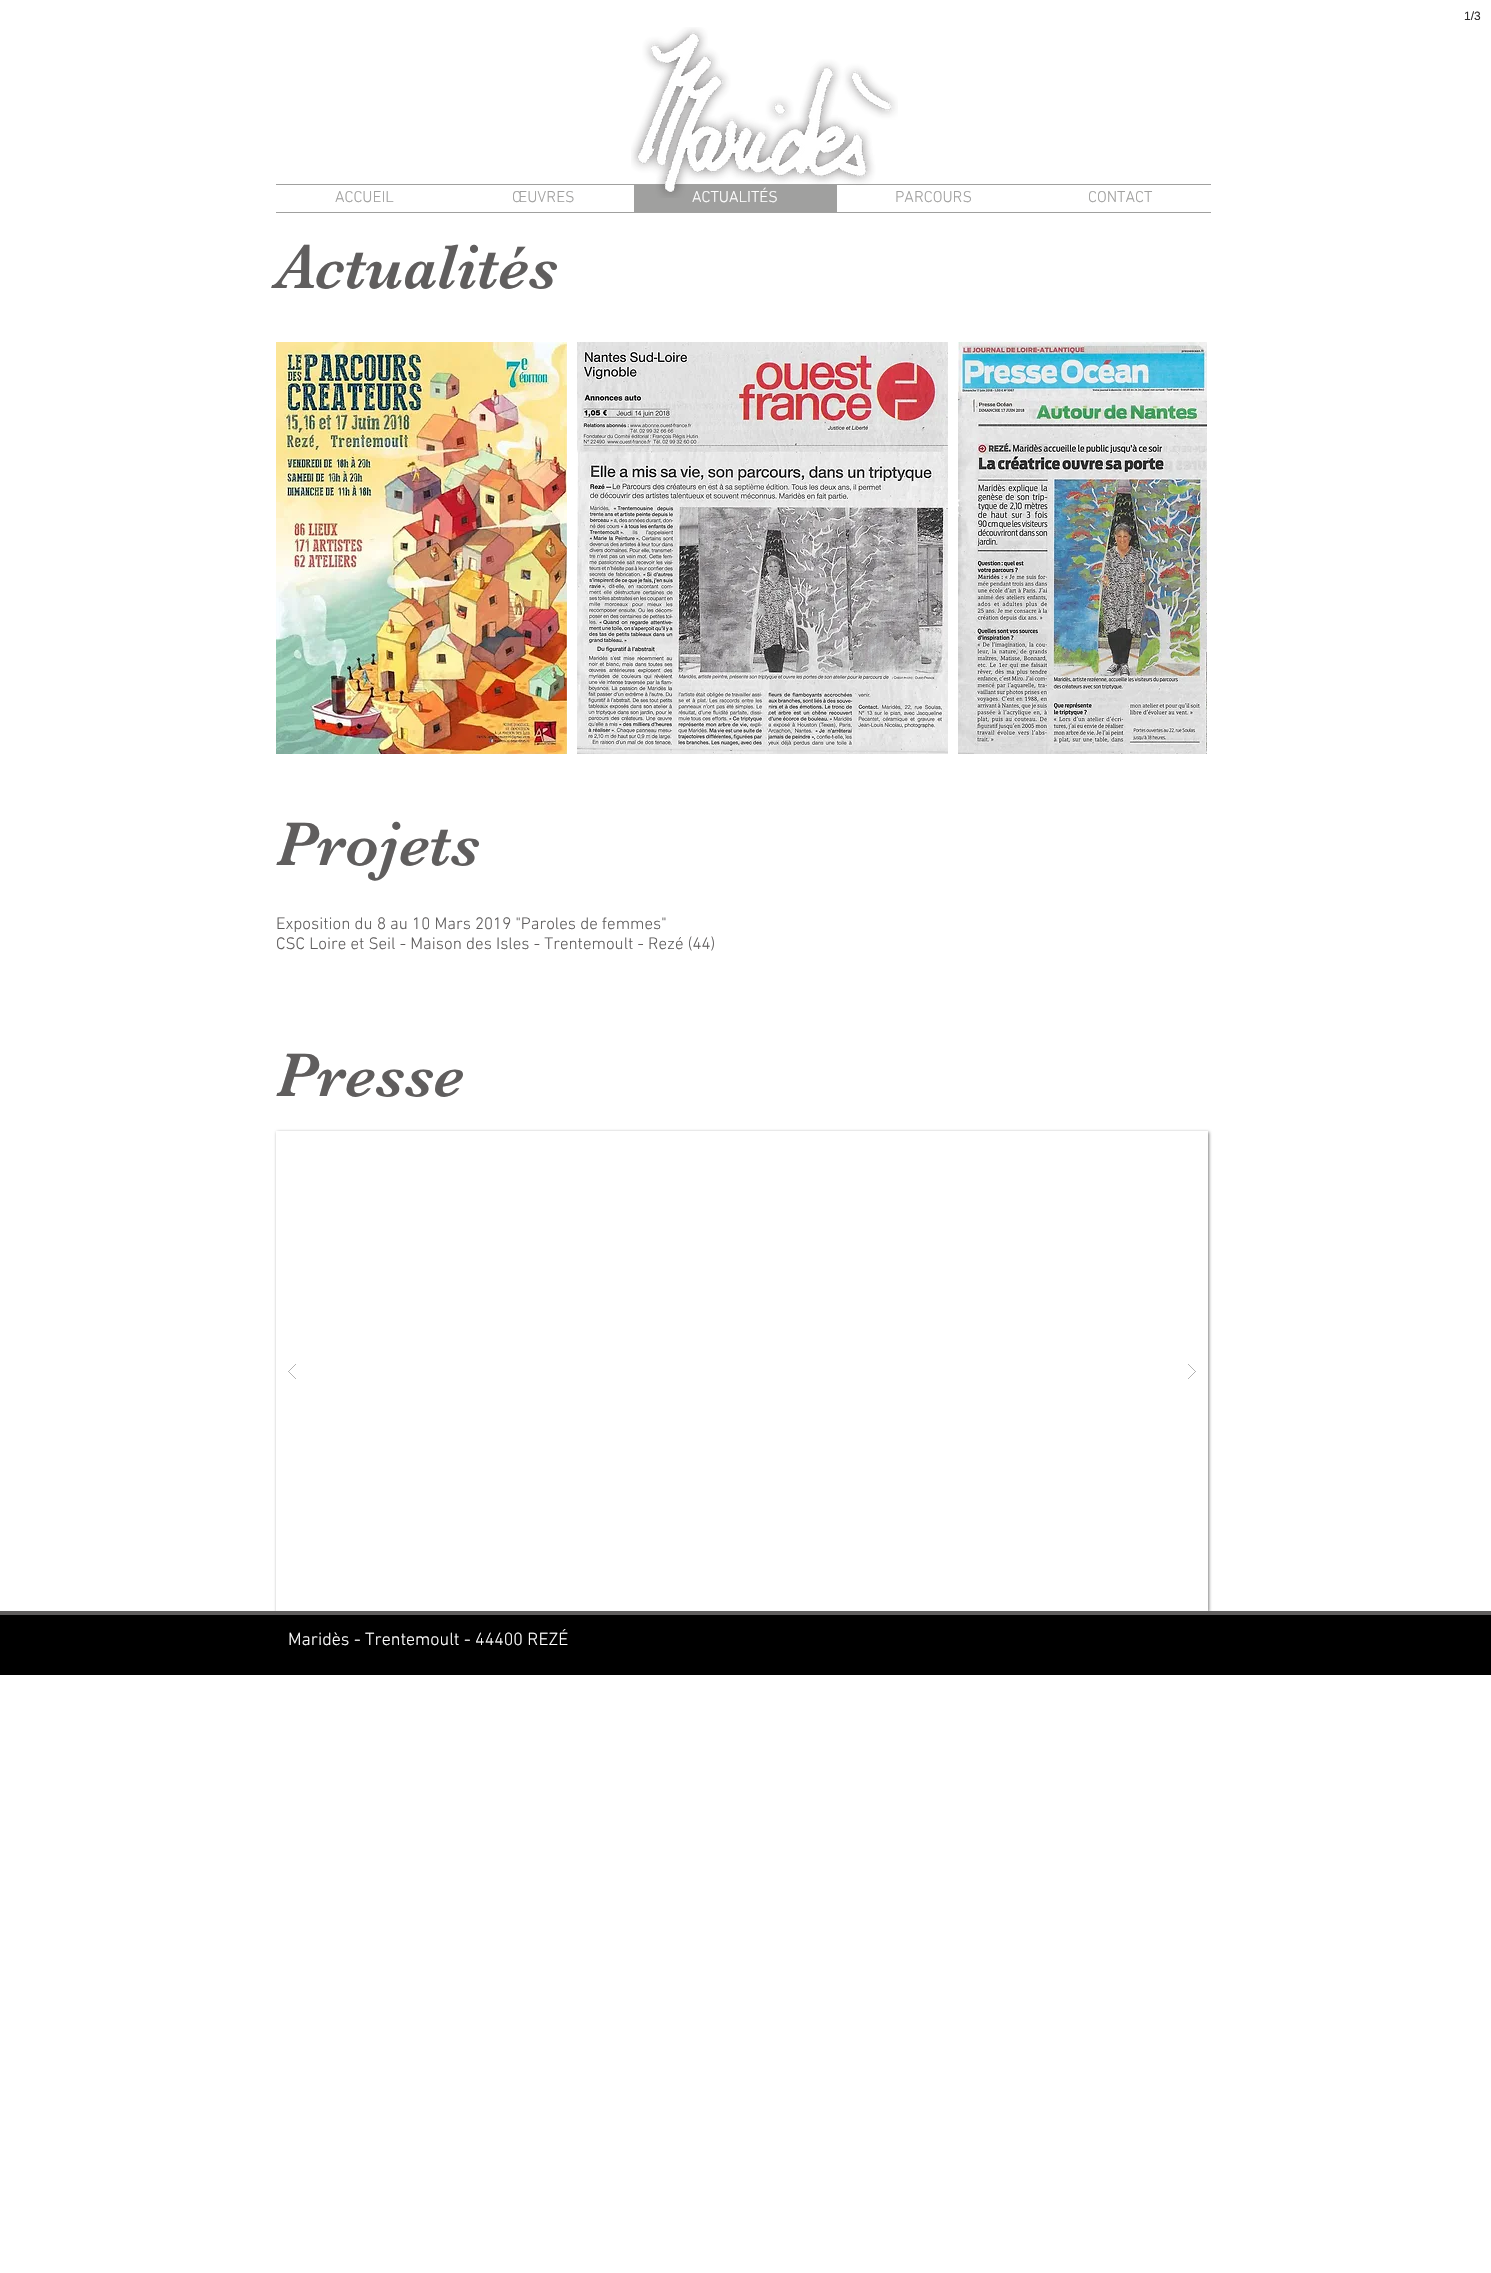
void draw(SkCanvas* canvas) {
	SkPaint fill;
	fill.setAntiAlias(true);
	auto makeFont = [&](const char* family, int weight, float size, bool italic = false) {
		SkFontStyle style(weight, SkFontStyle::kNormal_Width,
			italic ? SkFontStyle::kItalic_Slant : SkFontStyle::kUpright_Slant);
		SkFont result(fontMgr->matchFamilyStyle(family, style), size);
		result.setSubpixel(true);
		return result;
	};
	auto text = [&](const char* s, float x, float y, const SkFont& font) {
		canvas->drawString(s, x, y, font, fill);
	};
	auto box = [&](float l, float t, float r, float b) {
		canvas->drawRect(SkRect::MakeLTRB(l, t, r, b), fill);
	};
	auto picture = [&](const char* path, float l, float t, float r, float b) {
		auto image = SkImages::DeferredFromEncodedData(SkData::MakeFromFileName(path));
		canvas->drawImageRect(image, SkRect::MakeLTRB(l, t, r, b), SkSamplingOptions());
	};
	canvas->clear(0xFFFFFFFF);
	fill.setColor(0xFFA0A09F);
	box(276, 184, 1211, 185);
	box(276, 212, 1211, 213);
	box(634, 185, 837, 212);
	picture("image1.png", 276, 342, 567, 754);
	picture("image2.png", 577, 342, 948, 754);
	picture("image3.png", 958, 342, 1207, 754);
	canvas->save();
	canvas->clipPath(SkPathBuilder(SkPathFillType::kEvenOdd).moveTo(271, 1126).lineTo(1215, 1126).lineTo(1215, 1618).lineTo(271, 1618).close().moveTo(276, 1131).lineTo(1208, 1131).lineTo(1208, 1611).lineTo(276, 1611).close().detach(), true);
	fill.setColor(0x80000000);
	fill.setMaskFilter(SkMaskFilter::MakeBlur(kNormal_SkBlurStyle, 1.5f));
	canvas->drawRect(SkRect::MakeLTRB(277, 1132, 1209, 1612), fill);
	fill.setMaskFilter(nullptr);
	canvas->restore();
	picture("image4.png", 288, 1364, 296, 1379);
	picture("image5.png", 1188, 1364, 1196, 1379);
	fill.setColor(0xFF000000);
	box(0, 1615, 1491, 1675);
	fill.setColor(0xFF605E5E);
	box(0, 1611, 1491, 1615);
	auto font1 = makeFont("Liberation Sans", 400, 12);
	fill.setColor(0xFF2F2E2E);
	text("1/3", 1464, 20, font1);
	auto font2 = makeFont("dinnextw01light", 300, 16);
	fill.setColor(0xFFA0A09F);
	text("ACCUEIL", 335, 202, font2);
	text("ŒUVRES", 512, 202, font2);
	fill.setColor(0xFFFFFFFF);
	text("ACTUALITÉS", 692, 202, font2);
	fill.setColor(0xFFA0A09F);
	text("PARCOURS", 895, 202, font2);
	picture("image0.png", 631, 27, 898, 198);
	text("CONTACT", 1088, 202, font2);
	auto font3 = makeFont("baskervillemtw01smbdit", 400, 64);
	fill.setColor(0xFF605E5E);
	text("Actualités", 276, 288, font3);
	text("Projets", 276, 865, font3);
	auto font4 = makeFont("dinnextw01light", 300, 17);
	text("Exposition du 8 au 10 Mars 2019 \"Paroles de femmes\"", 276, 929, font4);
	text("CSC Loire et Seil - Maison des Isles - Trentemoult - Rezé (44)", 276, 949, font4);
	text("Presse", 276, 1096, font3);
	auto font5 = makeFont("dinnextw01light", 300, 18);
	fill.setColor(0xFFFFFFFF);
	text("Maridès - Trentemoult - 44400 REZÉ", 288, 1645, font5);
}
